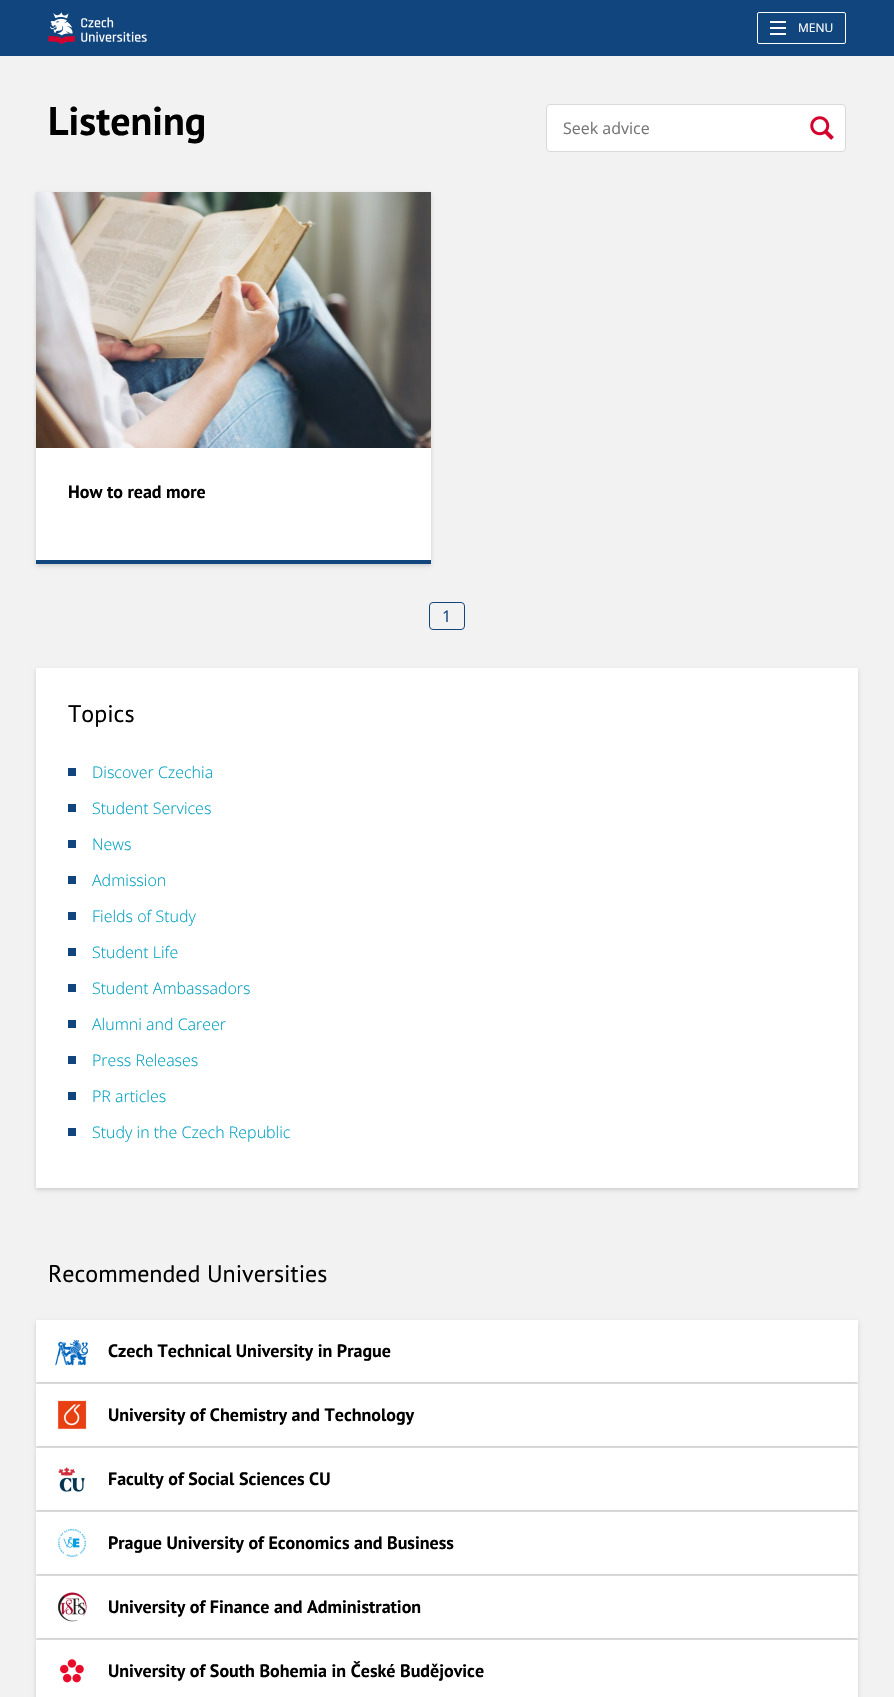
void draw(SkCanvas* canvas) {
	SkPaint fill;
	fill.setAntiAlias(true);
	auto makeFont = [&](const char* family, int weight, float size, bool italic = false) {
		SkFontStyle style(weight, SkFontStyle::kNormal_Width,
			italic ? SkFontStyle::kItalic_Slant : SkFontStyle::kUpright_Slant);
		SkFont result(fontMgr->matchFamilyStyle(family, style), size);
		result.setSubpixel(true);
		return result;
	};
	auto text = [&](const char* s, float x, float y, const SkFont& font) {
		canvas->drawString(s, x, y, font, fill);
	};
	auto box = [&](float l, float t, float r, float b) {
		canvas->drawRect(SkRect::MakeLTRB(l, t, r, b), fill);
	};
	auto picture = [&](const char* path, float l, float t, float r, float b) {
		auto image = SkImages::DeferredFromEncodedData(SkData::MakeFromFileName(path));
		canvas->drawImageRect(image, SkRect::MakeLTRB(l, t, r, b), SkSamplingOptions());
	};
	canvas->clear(0xFFF2F2F2);
	fill.setColor(0xFF11457E);
	box(0, 0, 894, 56);
	picture("image0.png", 48, 12, 147, 44);
	fill.setStyle(SkPaint::kStroke_Style);
	fill.setStrokeWidth(1);
	fill.setColor(0xFFFFFFFF);
	canvas->drawRoundRect(SkRect::MakeLTRB(757.5f, 12.5f, 845.5f, 43.5f), 1.5f, 1.5f, fill);
	fill.setStyle(SkPaint::kFill_Style);
	box(770, 27, 786, 29);
	box(770, 21, 786, 23);
	box(770, 33, 786, 35);
	canvas->drawRoundRect(SkRect::MakeLTRB(546.5f, 104.5f, 845.5f, 151.5f), 3.5f, 3.5f, fill);
	fill.setStyle(SkPaint::kStroke_Style);
	fill.setColor(0xFFD9D9D9);
	canvas->drawRoundRect(SkRect::MakeLTRB(546.5f, 104.5f, 845.5f, 151.5f), 3.5f, 3.5f, fill);
	picture("image1.png", 810, 116, 834, 140);
	fill.setStyle(SkPaint::kFill_Style);
	fill.setColor(0x26000000);
	fill.setMaskFilter(SkMaskFilter::MakeBlur(kNormal_SkBlurStyle, 2));
	canvas->drawRect(SkRect::MakeLTRB(36, 194, 431, 566), fill);
	fill.setMaskFilter(nullptr);
	picture("image2.png", 36, 192, 431, 448);
	fill.setColor(0xFFFFFFFF);
	box(36, 448, 431, 560);
	fill.setColor(0xFF11457E);
	box(36, 560, 431, 564);
	fill.setStyle(SkPaint::kStroke_Style);
	canvas->drawRoundRect(SkRect::MakeLTRB(429.5f, 602.5f, 464.5f, 629.5f), 3.5f, 3.5f, fill);
	fill.setStyle(SkPaint::kFill_Style);
	fill.setColor(0x26000000);
	fill.setMaskFilter(SkMaskFilter::MakeBlur(kNormal_SkBlurStyle, 2));
	canvas->drawRect(SkRect::MakeLTRB(36, 670, 858, 1190), fill);
	fill.setMaskFilter(nullptr);
	fill.setColor(0xFFFFFFFF);
	box(36, 668, 858, 1188);
	fill.setColor(0xFF11457E);
	box(68, 768, 76, 776);
	box(68, 804, 76, 812);
	box(68, 840, 76, 848);
	box(68, 876, 76, 884);
	box(68, 912, 76, 920);
	box(68, 948, 76, 956);
	box(68, 984, 76, 992);
	box(68, 1020, 76, 1028);
	box(68, 1056, 76, 1064);
	box(68, 1092, 76, 1100);
	box(68, 1128, 76, 1136);
	fill.setColor(0x26000000);
	fill.setMaskFilter(SkMaskFilter::MakeBlur(kNormal_SkBlurStyle, 2));
	canvas->drawRect(SkRect::MakeLTRB(36, 1322, 858, 1384), fill);
	fill.setMaskFilter(nullptr);
	fill.setColor(0xFFFFFFFF);
	box(36, 1320, 858, 1382);
	picture("image3.png", 55, 1340, 89, 1366);
	fill.setColor(0x26000000);
	fill.setMaskFilter(SkMaskFilter::MakeBlur(kNormal_SkBlurStyle, 2));
	canvas->drawRect(SkRect::MakeLTRB(36, 1386, 858, 1448), fill);
	fill.setMaskFilter(nullptr);
	fill.setColor(0xFFFFFFFF);
	box(36, 1384, 858, 1446);
	picture("image4.png", 56, 1400, 88, 1430);
	fill.setColor(0x26000000);
	fill.setMaskFilter(SkMaskFilter::MakeBlur(kNormal_SkBlurStyle, 2));
	canvas->drawRect(SkRect::MakeLTRB(36, 1450, 858, 1512), fill);
	fill.setMaskFilter(nullptr);
	fill.setColor(0xFFFFFFFF);
	box(36, 1448, 858, 1510);
	picture("image5.png", 58, 1467, 85, 1492);
	fill.setColor(0x26000000);
	fill.setMaskFilter(SkMaskFilter::MakeBlur(kNormal_SkBlurStyle, 2));
	canvas->drawRect(SkRect::MakeLTRB(36, 1514, 858, 1576), fill);
	fill.setMaskFilter(nullptr);
	fill.setColor(0xFFFFFFFF);
	box(36, 1512, 858, 1574);
	picture("image6.png", 57, 1528, 87, 1557);
	fill.setColor(0x26000000);
	fill.setMaskFilter(SkMaskFilter::MakeBlur(kNormal_SkBlurStyle, 2));
	canvas->drawRect(SkRect::MakeLTRB(36, 1578, 858, 1640), fill);
	fill.setMaskFilter(nullptr);
	fill.setColor(0xFFFFFFFF);
	box(36, 1576, 858, 1638);
	picture("image7.png", 57, 1592, 87, 1622);
	fill.setColor(0x26000000);
	fill.setMaskFilter(SkMaskFilter::MakeBlur(kNormal_SkBlurStyle, 2));
	canvas->drawRect(SkRect::MakeLTRB(36, 1642, 858, 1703), fill);
	fill.setMaskFilter(nullptr);
	fill.setColor(0xFFFFFFFF);
	box(36, 1640, 858, 1697);
	picture("image8.png", 59, 1659, 84, 1683);
	auto font1 = makeFont("Open Sans", 400, 12);
	text("MENU", 798, 32, font1);
	auto font2 = makeFont("PT Sans", 700, 40);
	fill.setColor(0xFF000000);
	text("Listening", 48, 135, font2);
	auto font3 = makeFont("Open Sans", 400, 16);
	fill.setColor(0xFF757575);
	text("Seek advice", 563, 134, font3);
	auto font4 = makeFont("PT Sans", 700, 18);
	fill.setColor(0xFF000000);
	text("How to read more", 68, 498, font4);
	fill.setColor(0xFF11457E);
	text("1", 442, 622, font3);
	auto font5 = makeFont("PT Sans", 400, 24);
	fill.setColor(0xFF000000);
	text("Topics", 68, 722, font5);
	auto font6 = makeFont("Open Sans", 300, 16);
	fill.setColor(0xFF00A0C0);
	text("Discover Czechia", 92, 778, font6);
	text("Student Services", 92, 814, font6);
	text("News", 92, 850, font6);
	text("Admission", 92, 886, font6);
	text("Fields of Study", 92, 922, font6);
	text("Student Life", 92, 958, font6);
	text("Student Ambassadors", 92, 994, font6);
	text("Alumni and Career", 92, 1030, font6);
	text("Press Releases", 92, 1066, font6);
	text("PR articles", 92, 1102, font6);
	text("Study in the Czech Republic", 92, 1138, font6);
	fill.setColor(0xFF000000);
	text("Recommended Universities", 48, 1282, font5);
	text("Czech Technical University in Prague", 108, 1357, font4);
	text("University of Chemistry and Technology", 108, 1421, font4);
	text("Faculty of Social Sciences CU", 108, 1485, font4);
	text("Prague University of Economics and Business", 108, 1549, font4);
	text("University of Finance and Administration", 108, 1613, font4);
	text("University of South Bohemia in České Budějovice", 108, 1677, font4);
}
